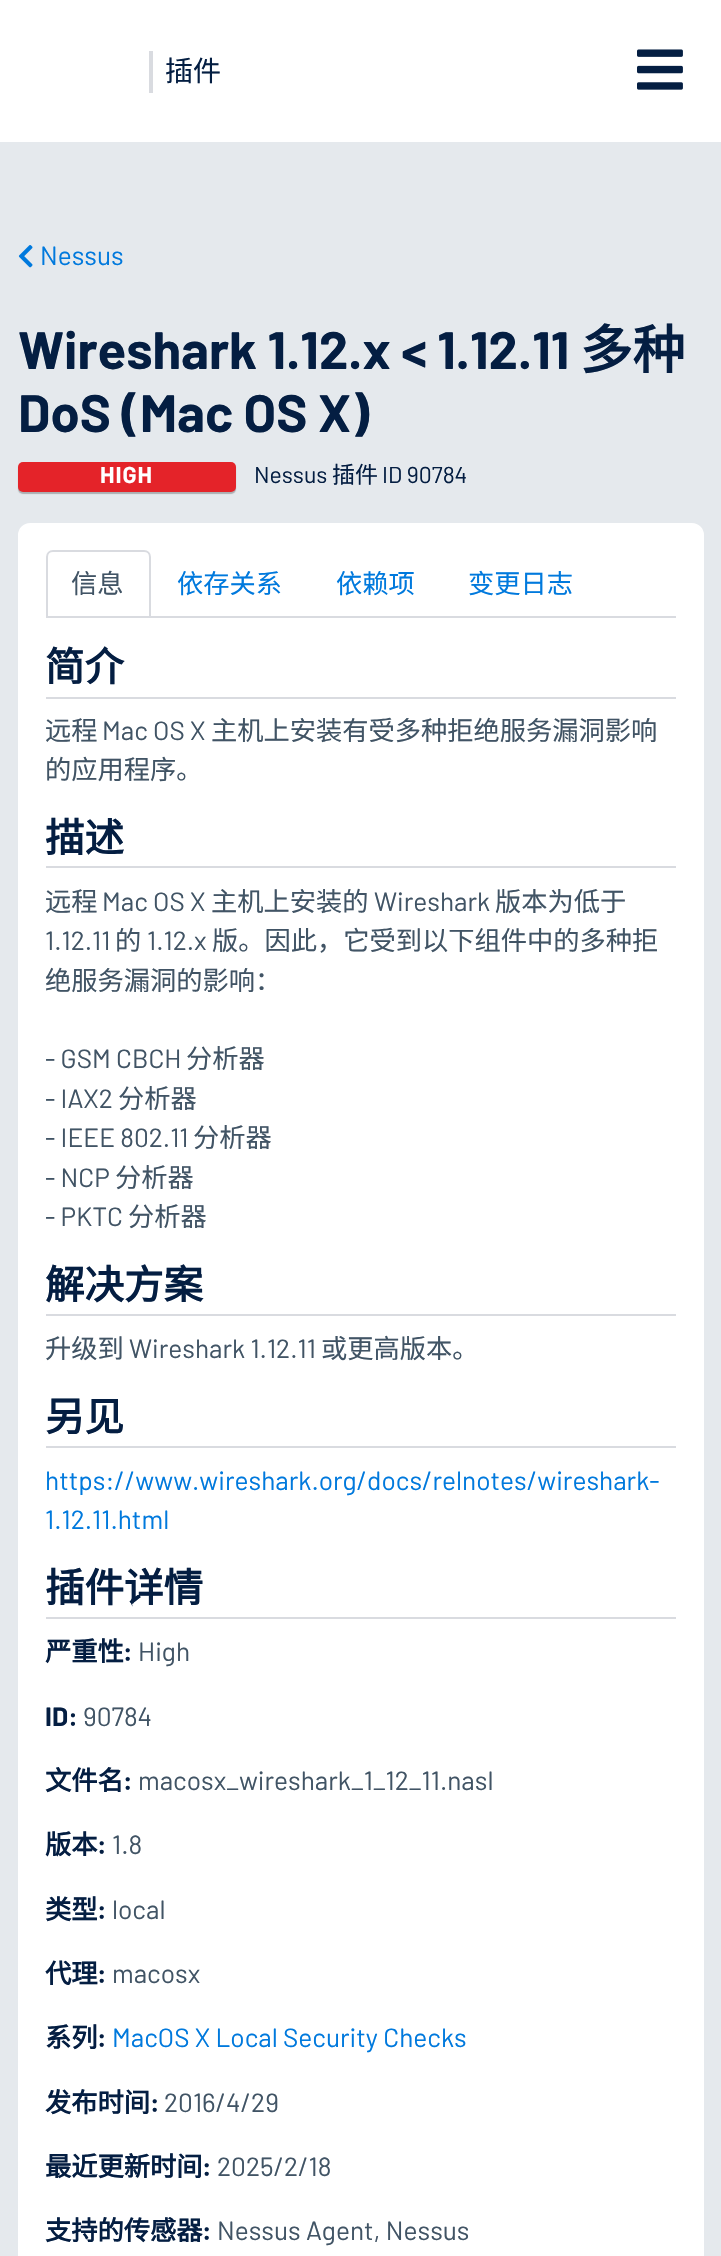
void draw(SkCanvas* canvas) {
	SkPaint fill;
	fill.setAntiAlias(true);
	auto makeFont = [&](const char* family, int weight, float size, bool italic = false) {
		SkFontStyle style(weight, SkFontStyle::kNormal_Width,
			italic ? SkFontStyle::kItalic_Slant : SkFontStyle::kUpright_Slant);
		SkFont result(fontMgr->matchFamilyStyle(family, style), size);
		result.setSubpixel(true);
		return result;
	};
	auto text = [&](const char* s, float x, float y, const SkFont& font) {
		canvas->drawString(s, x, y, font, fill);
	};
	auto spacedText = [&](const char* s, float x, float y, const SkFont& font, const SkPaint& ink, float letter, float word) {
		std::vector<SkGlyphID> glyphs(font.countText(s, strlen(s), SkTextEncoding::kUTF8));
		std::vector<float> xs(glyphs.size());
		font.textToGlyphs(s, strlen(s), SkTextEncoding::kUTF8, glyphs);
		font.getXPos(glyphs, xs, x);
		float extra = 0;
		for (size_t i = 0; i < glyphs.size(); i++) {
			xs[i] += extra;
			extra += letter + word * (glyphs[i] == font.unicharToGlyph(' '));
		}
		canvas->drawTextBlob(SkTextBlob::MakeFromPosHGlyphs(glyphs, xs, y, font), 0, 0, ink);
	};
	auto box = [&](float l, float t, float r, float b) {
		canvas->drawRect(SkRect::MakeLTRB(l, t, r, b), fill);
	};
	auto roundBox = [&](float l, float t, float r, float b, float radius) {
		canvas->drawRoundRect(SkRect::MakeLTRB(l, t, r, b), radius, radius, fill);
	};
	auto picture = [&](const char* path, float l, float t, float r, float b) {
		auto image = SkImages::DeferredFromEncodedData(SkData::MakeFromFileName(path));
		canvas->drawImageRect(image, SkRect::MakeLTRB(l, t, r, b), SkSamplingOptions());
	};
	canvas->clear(0xFFFFFFFF);
	fill.setColor(0xFFD9DBE0);
	box(149, 51, 153, 93);
	picture("image0.png", 637, 49, 683, 90);
	fill.setColor(0xFFE5E9ED);
	box(0, 142, 721, 2256);
	picture("image1.png", 18, 245, 33, 268);
	fill.setColor(0x40000000);
	fill.setMaskFilter(SkMaskFilter::MakeBlur(kNormal_SkBlurStyle, 0.5f));
	canvas->drawRoundRect(SkRect::MakeLTRB(18, 464, 236, 494), 5, 5, fill);
	fill.setMaskFilter(nullptr);
	fill.setColor(0xFFE42329);
	roundBox(18, 462, 236, 492, 5);
	fill.setColor(0xFFFFFFFF);
	canvas->drawRoundRect(SkRect::MakeLTRB(19, 524, 703, 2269), 11, 11, fill);
	fill.setStyle(SkPaint::kStroke_Style);
	fill.setStrokeWidth(2);
	canvas->drawRoundRect(SkRect::MakeLTRB(19, 524, 703, 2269), 11, 11, fill);
	fill.setStyle(SkPaint::kFill_Style);
	fill.setColor(0xFFD9DBE0);
	box(151, 616, 676, 618);
	fill.setStyle(SkPaint::kStroke_Style);
	canvas->drawPath(SkPathBuilder().moveTo(53, 551).lineTo(144, 551).cubicTo(147.5f, 551, 150, 553.5f, 150, 557).lineTo(150, 617).lineTo(47, 617).lineTo(47, 557).cubicTo(47, 553.5f, 49.5f, 551, 53, 551).close().detach(), fill);
	fill.setStyle(SkPaint::kFill_Style);
	box(46, 697, 676, 699);
	box(46, 866, 676, 868);
	box(46, 1314, 676, 1316);
	box(46, 1446, 676, 1448);
	box(46, 1617, 676, 1619);
	auto font1 = makeFont("Noto Sans CJK SC", 400, 28);
	fill.setColor(0xFF041E42);
	text("插件", 165, 81, font1);
	auto font2 = makeFont("Barlow", 400, 26.25f);
	fill.setColor(0xFF0079DD);
	text("Nessus", 40, 265, font2);
	auto font3 = makeFont("Barlow", 700, 52.5f);
	fill.setColor(0xFF041E42);
	text("Wireshark 1.12.x < 1.12.11", 18, 369, font3);
	auto font4 = makeFont("Noto Sans CJK SC", 700, 52.5f);
	text("多种", 580, 369, font4);
	text("DoS (Mac OS X)", 18, 432, font3);
	auto font5 = makeFont("Barlow", 700, 23);
	fill.setColor(0xFFFFFFFF);
	spacedText("HIGH", 100, 483, font5, fill, 1, 0);
	auto font6 = makeFont("Barlow", 400, 23);
	fill.setColor(0xFF041E42);
	text("Nessus", 254, 483, font6);
	auto font7 = makeFont("Noto Sans CJK SC", 400, 23);
	text("插件", 332, 483, font7);
	text("ID 90784", 382, 483, font6);
	auto font8 = makeFont("Noto Sans CJK SC", 400, 26.25f);
	fill.setColor(0xFF415465);
	text("信息", 71, 593, font8);
	fill.setColor(0xFF0079DD);
	text("依存关系", 177, 593, font8);
	text("依赖项", 336, 593, font8);
	text("变更日志", 468, 593, font8);
	auto font9 = makeFont("Noto Sans CJK SC", 700, 39.5f);
	fill.setColor(0xFF041E42);
	text("简介", 45, 681, font9);
	fill.setColor(0xFF415465);
	text("远程", 45, 740, font8);
	text("Mac OS X", 102, 740, font2);
	text("主机上安装有受多种拒绝服务漏洞影响", 211, 740, font8);
	text("的应用程序。", 45, 779, font8);
	fill.setColor(0xFF041E42);
	text("描述", 45, 852, font9);
	fill.setColor(0xFF415465);
	text("远程", 45, 911, font8);
	text("Mac OS X", 102, 911, font2);
	text("主机上安装的", 211, 911, font8);
	text("Wireshark", 374, 911, font2);
	text("版本为低于", 495, 911, font8);
	text("1.12.11", 45, 950, font2);
	text("的", 115, 950, font8);
	text("1.12.x", 147, 950, font2);
	text("版。因此，它受到以下组件中的多种拒", 212, 950, font8);
	text("绝服务漏洞的影响：", 45, 990, font8);
	text("- GSM CBCH", 45, 1068, font2);
	text("分析器", 186, 1068, font8);
	text("- IAX2", 45, 1108, font2);
	text("分析器", 118, 1108, font8);
	text("- IEEE 802.11", 45, 1147, font2);
	text("分析器", 193, 1147, font8);
	text("- NCP", 45, 1187, font2);
	text("分析器", 115, 1187, font8);
	text("- PKTC", 45, 1226, font2);
	text("分析器", 128, 1226, font8);
	fill.setColor(0xFF041E42);
	text("解决方案", 45, 1299, font9);
	fill.setColor(0xFF415465);
	text("升级到", 45, 1358, font8);
	text("Wireshark 1.12.11", 129, 1358, font2);
	text("或更高版本。", 321, 1358, font8);
	fill.setColor(0xFF041E42);
	text("另见", 45, 1431, font9);
	fill.setColor(0xFF0079DD);
	text("https://www.wireshark.org/docs/relnotes/wireshark-", 45, 1490, font2);
	text("1.12.11.html", 45, 1529, font2);
	fill.setColor(0xFF041E42);
	text("插件详情", 45, 1602, font9);
	auto font10 = makeFont("Noto Sans CJK SC", 700, 26.25f);
	text("严重性", 45, 1661, font10);
	auto font11 = makeFont("Barlow", 700, 26.25f);
	text(":", 123, 1661, font11);
	fill.setColor(0xFF415465);
	text("High", 138, 1661, font2);
	fill.setColor(0xFF041E42);
	text("ID:", 45, 1726, font11);
	fill.setColor(0xFF415465);
	text("90784", 83, 1726, font2);
	fill.setColor(0xFF041E42);
	text("文件名", 45, 1790, font10);
	text(":", 123, 1790, font11);
	fill.setColor(0xFF415465);
	text("macosx_wireshark_1_12_11.nasl", 138, 1790, font2);
	fill.setColor(0xFF041E42);
	text("版本", 45, 1854, font10);
	text(":", 97, 1854, font11);
	fill.setColor(0xFF415465);
	text("1.8", 112, 1854, font2);
	fill.setColor(0xFF041E42);
	text("类型", 45, 1919, font10);
	text(":", 97, 1919, font11);
	fill.setColor(0xFF415465);
	text("local", 112, 1919, font2);
	fill.setColor(0xFF041E42);
	text("代理", 45, 1983, font10);
	text(":", 97, 1983, font11);
	fill.setColor(0xFF415465);
	text("macosx", 112, 1983, font2);
	fill.setColor(0xFF041E42);
	text("系列", 45, 2047, font10);
	text(":", 97, 2047, font11);
	fill.setColor(0xFF0079DD);
	text("MacOS X Local Security Checks", 112, 2047, font2);
	fill.setColor(0xFF041E42);
	text("发布时间", 45, 2112, font10);
	text(":", 150, 2112, font11);
	fill.setColor(0xFF415465);
	text("2016/4/29", 164, 2112, font2);
	fill.setColor(0xFF041E42);
	text("最近更新时间", 45, 2176, font10);
	text(":", 202, 2176, font11);
	fill.setColor(0xFF415465);
	text("2025/2/18", 217, 2176, font2);
	fill.setColor(0xFF041E42);
	text("支持的传感器", 45, 2240, font10);
	text(":", 202, 2240, font11);
	fill.setColor(0xFF415465);
	text("Nessus Agent, Nessus", 217, 2240, font2);
}
